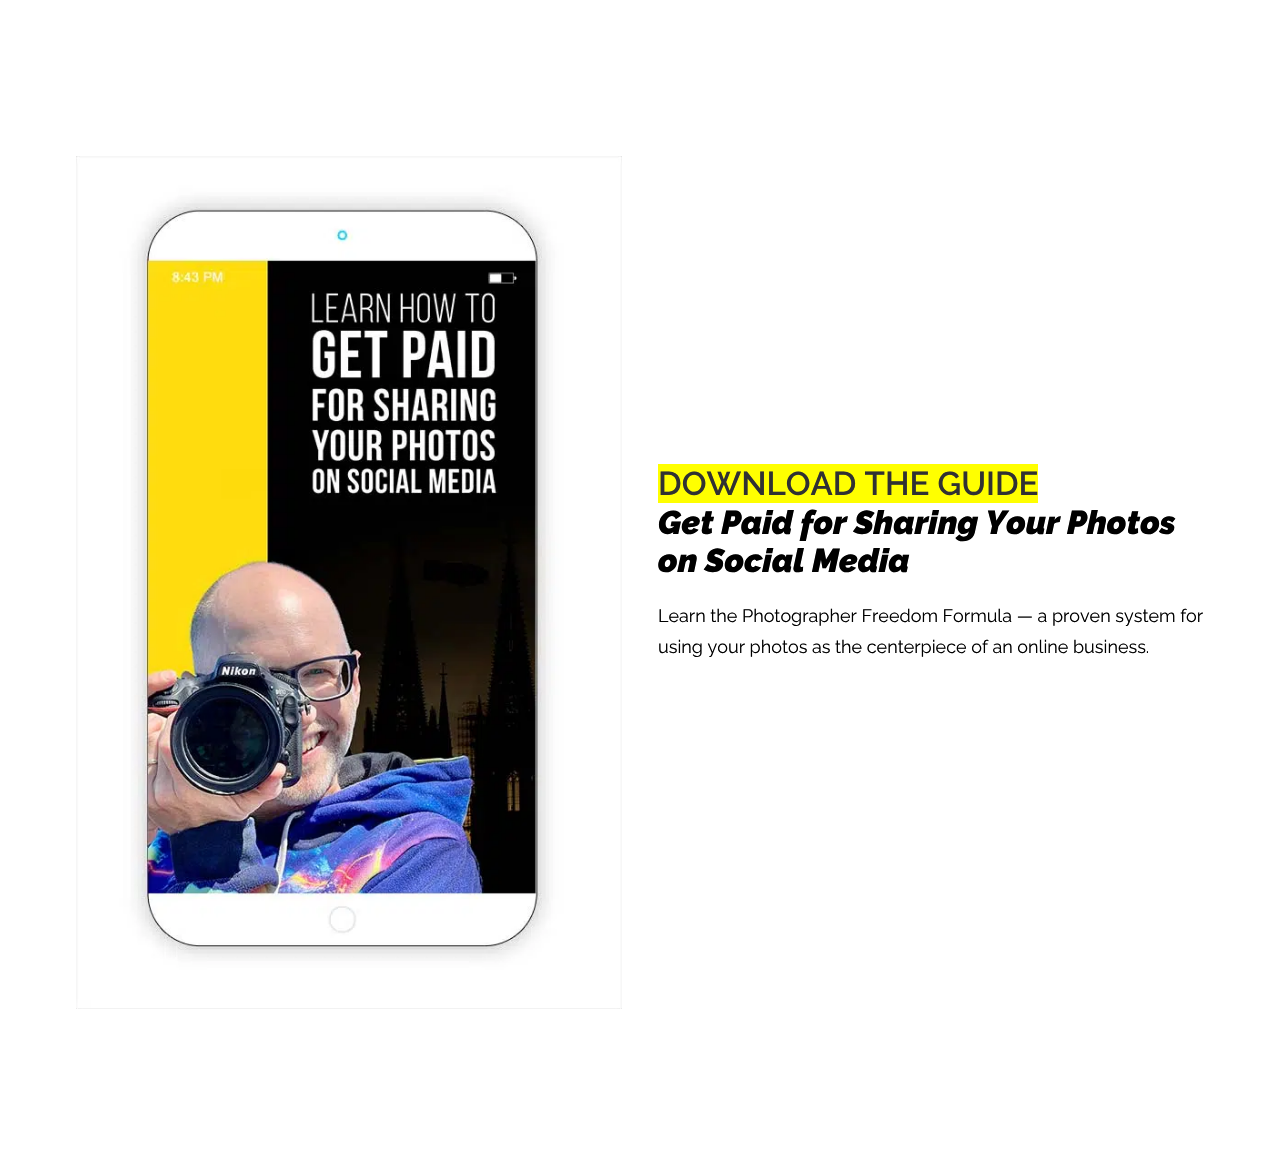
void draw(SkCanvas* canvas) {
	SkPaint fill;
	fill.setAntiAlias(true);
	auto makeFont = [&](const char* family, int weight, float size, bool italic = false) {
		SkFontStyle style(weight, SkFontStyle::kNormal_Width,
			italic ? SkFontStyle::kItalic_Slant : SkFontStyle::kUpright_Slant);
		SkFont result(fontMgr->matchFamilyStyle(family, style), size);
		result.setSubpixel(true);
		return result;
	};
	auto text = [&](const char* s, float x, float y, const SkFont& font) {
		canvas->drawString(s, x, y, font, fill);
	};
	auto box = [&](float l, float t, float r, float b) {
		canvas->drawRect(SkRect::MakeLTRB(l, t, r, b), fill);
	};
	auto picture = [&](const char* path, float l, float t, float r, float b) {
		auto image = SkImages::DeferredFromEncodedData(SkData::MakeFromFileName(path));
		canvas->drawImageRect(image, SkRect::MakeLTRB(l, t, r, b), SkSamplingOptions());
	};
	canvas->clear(0xFFFFFFFF);
	picture("image0.png", 76, 156, 622, 1009);
	fill.setColor(0xFFFFFF00);
	box(658, 464, 1038, 503);
	auto font1 = makeFont("Raleway", 600, 33);
	fill.setColor(0xFF303133);
	text("DOWNLOAD THE GUIDE", 658, 495, font1);
	auto font2 = makeFont("Raleway", 900, 33, true);
	fill.setColor(0xFF000000);
	text("Get Paid for Sharing Your Photos", 658, 534, font2);
	text("on Social Media", 658, 572, font2);
	auto font3 = makeFont("Raleway", 400, 18);
	text("Learn the Photographer Freedom Formula — a proven system for", 658, 622, font3);
	text("using your photos as the centerpiece of an online business.", 658, 653, font3);
}
